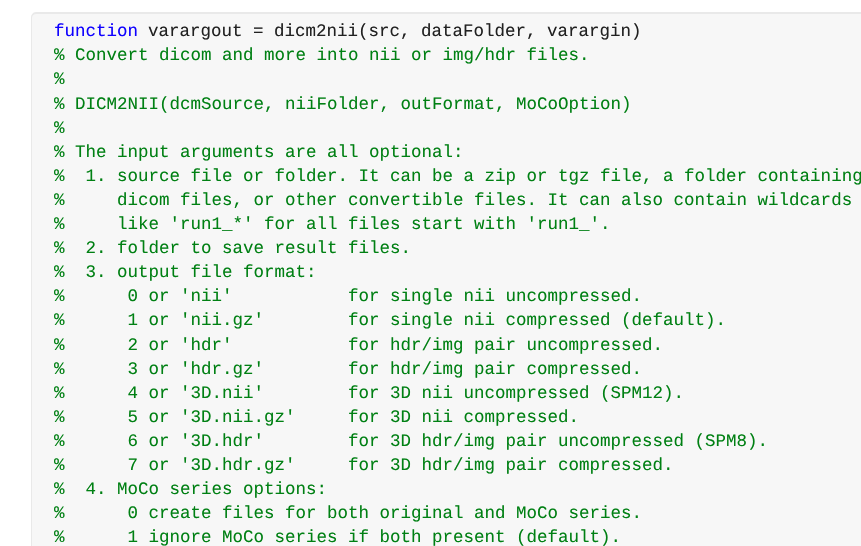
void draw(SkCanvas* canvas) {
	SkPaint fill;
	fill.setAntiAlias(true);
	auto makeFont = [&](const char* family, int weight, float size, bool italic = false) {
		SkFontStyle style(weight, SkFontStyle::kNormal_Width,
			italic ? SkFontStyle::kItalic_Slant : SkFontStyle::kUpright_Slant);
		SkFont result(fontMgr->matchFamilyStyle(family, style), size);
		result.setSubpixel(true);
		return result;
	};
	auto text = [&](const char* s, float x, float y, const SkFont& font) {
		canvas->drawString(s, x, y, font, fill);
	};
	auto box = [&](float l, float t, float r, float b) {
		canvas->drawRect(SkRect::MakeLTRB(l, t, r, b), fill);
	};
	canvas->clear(0xFFFFFFFF);
	fill.setColor(0xFFF7F7F7);
	canvas->drawPath(SkPathBuilder().moveTo(36, 13).lineTo(861, 13).lineTo(861, 546).lineTo(31, 546).lineTo(31, 18).cubicTo(31, 15, 33, 13, 36, 13).close().detach(), fill);
	fill.setColor(0xFFE9E9E9);
	canvas->drawPath(SkPathBuilder(SkPathFillType::kEvenOdd).moveTo(36, 12).lineTo(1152, 12).cubicTo(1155, 12, 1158, 15, 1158, 18).lineTo(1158, 44).lineTo(31, 44).lineTo(31, 18).cubicTo(31, 15, 33, 12, 36, 12).close().moveTo(36, 14).lineTo(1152, 14).cubicTo(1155, 14, 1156, 15, 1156, 18).lineTo(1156, 44).lineTo(32, 44).lineTo(32, 18).cubicTo(32, 15, 34, 14, 36, 14).close().detach(), fill);
	box(31, 44, 32, 546);
	auto font1 = makeFont("Liberation Mono", 400, 17.5f);
	fill.setColor(0xFF0E00FF);
	text("function", 54, 36, font1);
	fill.setColor(0xFF212121);
	text("varargout = dicm2nii(src, dataFolder, varargin)", 148, 36, font1);
	fill.setColor(0xFF008013);
	text("% Convert dicom and more into nii or img/hdr files.", 54, 60, font1);
	text("%", 54, 84, font1);
	text("% DICM2NII(dcmSource, niiFolder, outFormat, MoCoOption)", 54, 109, font1);
	text("%", 54, 133, font1);
	text("% The input arguments are all optional:", 54, 157, font1);
	text("%  1. source file or folder. It can be a zip or tgz file, a folder containing", 54, 181, font1);
	text("%     dicom files, or other convertible files. It can also contain wildcards", 54, 205, font1);
	text("%     like 'run1_*' for all files start with 'run1_'.", 54, 229, font1);
	text("%  2. folder to save result files.", 54, 253, font1);
	text("%  3. output file format:", 54, 277, font1);
	text("%      0 or 'nii'           for single nii uncompressed.", 54, 301, font1);
	text("%      1 or 'nii.gz'        for single nii compressed (default).", 54, 325, font1);
	text("%      2 or 'hdr'           for hdr/img pair uncompressed.", 54, 350, font1);
	text("%      3 or 'hdr.gz'        for hdr/img pair compressed.", 54, 374, font1);
	text("%      4 or '3D.nii'        for 3D nii uncompressed (SPM12).", 54, 398, font1);
	text("%      5 or '3D.nii.gz'     for 3D nii compressed.", 54, 422, font1);
	text("%      6 or '3D.hdr'        for 3D hdr/img pair uncompressed (SPM8).", 54, 446, font1);
	text("%      7 or '3D.hdr.gz'     for 3D hdr/img pair compressed.", 54, 470, font1);
	text("%  4. MoCo series options:", 54, 494, font1);
	text("%      0 create files for both original and MoCo series.", 54, 518, font1);
	text("%      1 ignore MoCo series if both present (default).", 54, 542, font1);
}
